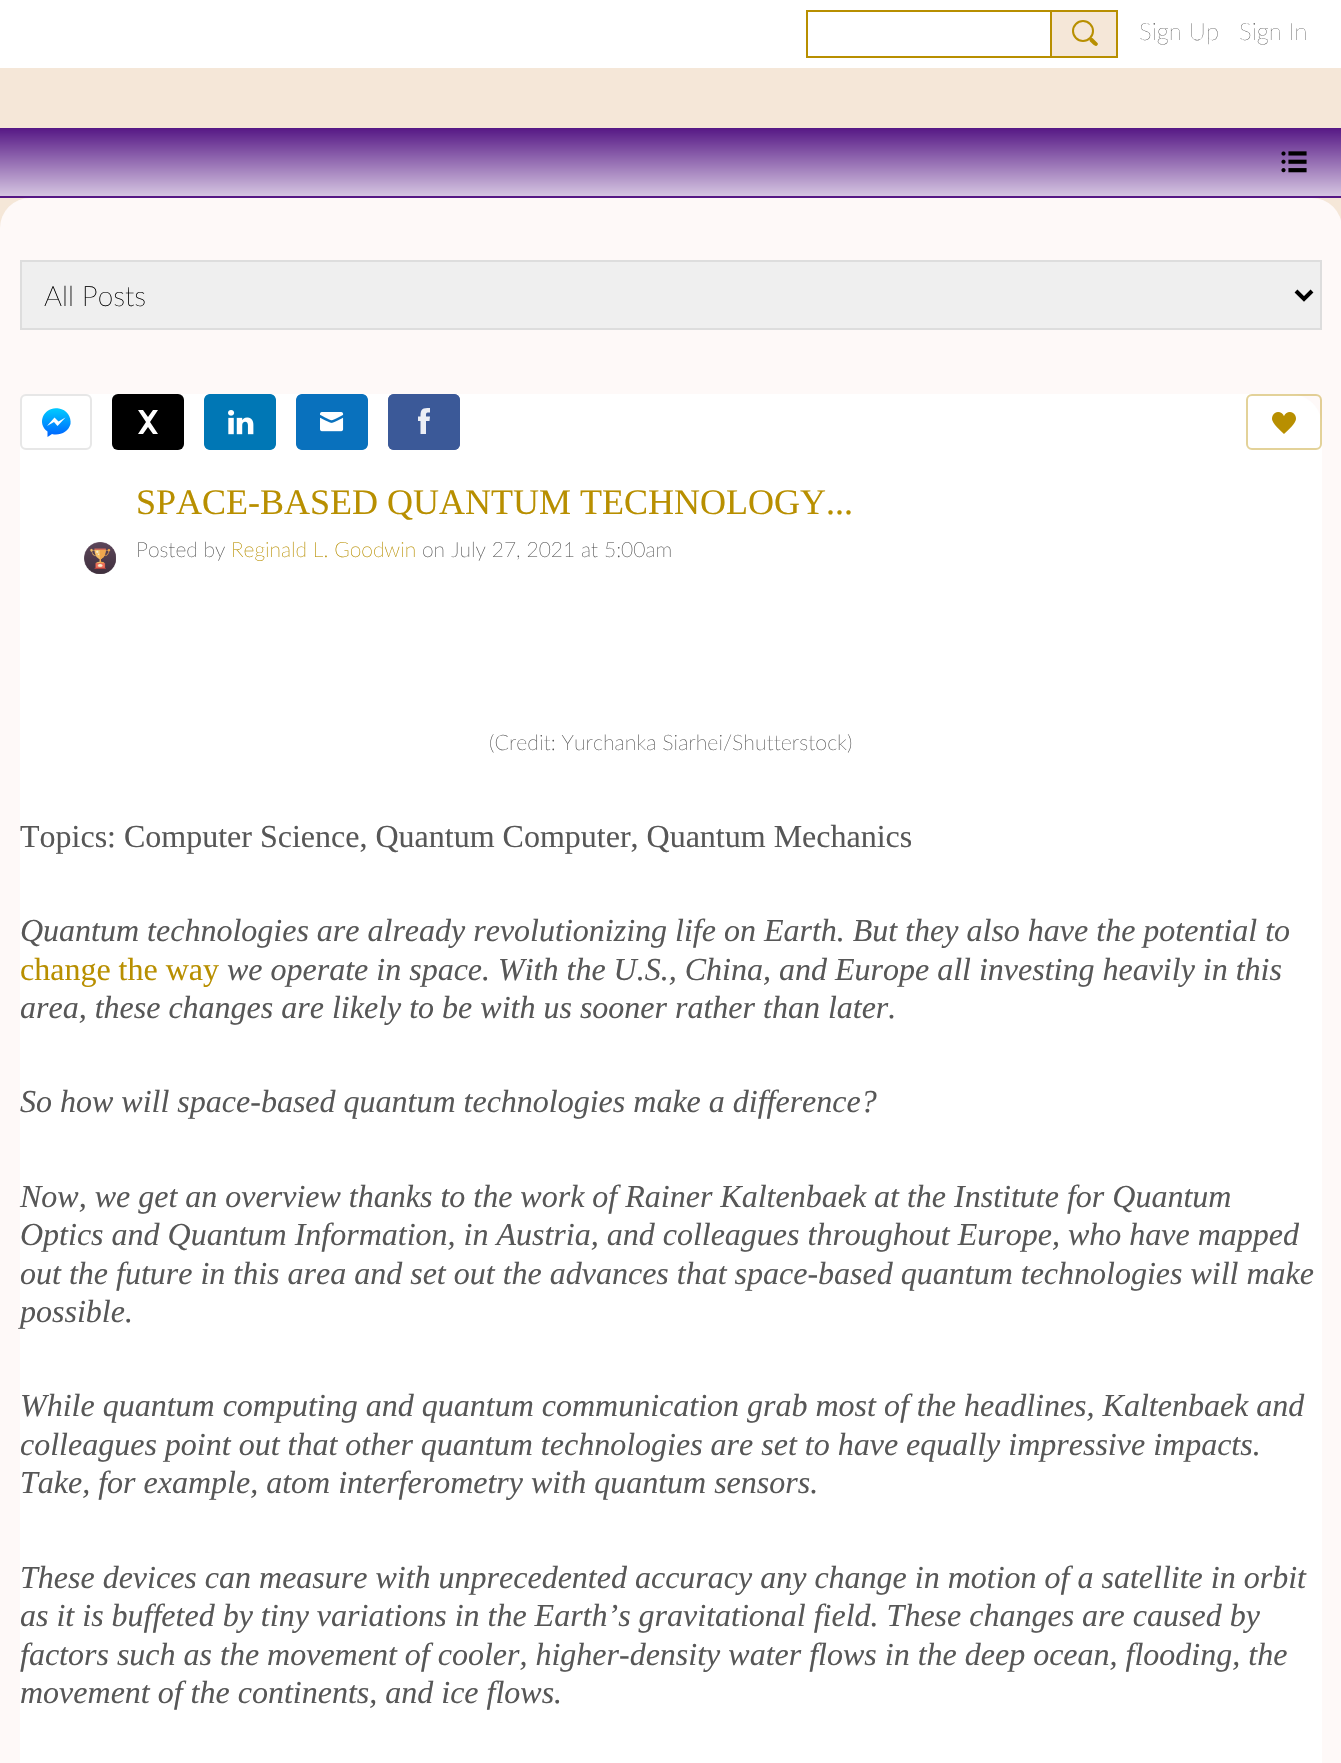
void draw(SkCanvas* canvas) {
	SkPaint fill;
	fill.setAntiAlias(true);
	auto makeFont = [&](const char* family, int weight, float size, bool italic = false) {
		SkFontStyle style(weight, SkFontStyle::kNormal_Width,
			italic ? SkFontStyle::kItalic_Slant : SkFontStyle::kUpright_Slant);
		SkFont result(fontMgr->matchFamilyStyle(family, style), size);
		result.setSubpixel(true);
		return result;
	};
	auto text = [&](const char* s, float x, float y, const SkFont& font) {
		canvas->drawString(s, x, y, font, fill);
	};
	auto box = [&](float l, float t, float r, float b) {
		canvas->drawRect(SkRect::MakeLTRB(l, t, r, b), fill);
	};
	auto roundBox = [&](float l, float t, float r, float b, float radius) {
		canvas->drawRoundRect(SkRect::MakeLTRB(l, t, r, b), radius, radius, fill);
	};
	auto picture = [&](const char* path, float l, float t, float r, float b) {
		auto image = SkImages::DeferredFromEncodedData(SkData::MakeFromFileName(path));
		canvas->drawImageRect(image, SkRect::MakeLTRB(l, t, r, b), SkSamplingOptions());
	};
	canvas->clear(0xFFF5E7D8);
	fill.setColor(0xFFFFFFFF);
	box(0, 0, 1341, 68);
	fill.setStyle(SkPaint::kStroke_Style);
	fill.setStrokeWidth(2);
	fill.setColor(0xFFB88F00);
	canvas->drawRect(SkRect::MakeLTRB(807, 11, 1051, 57), fill);
	fill.setStyle(SkPaint::kFill_Style);
	fill.setColor(0xFFF5E7D8);
	canvas->drawRect(SkRect::MakeLTRB(1051, 11, 1117, 57), fill);
	fill.setStyle(SkPaint::kStroke_Style);
	fill.setColor(0xFFB88F00);
	canvas->drawRect(SkRect::MakeLTRB(1051, 11, 1117, 57), fill);
	canvas->drawCircle(1083, 31, 10, fill);
	fill.setStyle(SkPaint::kFill_Style);
	canvas->drawPath(SkPathBuilder().moveTo(1093, 38.5f).lineTo(1097.5f, 43).cubicTo(1098, 43.5f, 1098, 44.5f, 1097.5f, 45).cubicTo(1095.5f, 48, 1091.5f, 42.5f, 1090, 41.5f).cubicTo(1088.5f, 39.5f, 1091, 36.5f, 1093, 38.5f).close().detach(), fill);
	{
		const SkColor colors[] = {0xFF561885, 0xFFD5C5E1};
		const float stops[] = {0, 1};
		const SkPoint ends[] = {{671, 128}, {671, 196}};
		fill.setShader(SkGradientShader::MakeLinear(ends, colors, stops, 2, SkTileMode::kClamp));
		fill.setAlpha(255);
	}
	box(0, 128, 1341, 196);
	fill.setShader(nullptr);
	fill.setColor(0xFF561885);
	box(0, 196, 1341, 198);
	picture("image0.png", 1281, 151, 1307, 173);
	fill.setColor(0xFFFEF9F8);
	roundBox(0, 198, 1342, 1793, 30);
	fill.setColor(0xFFEFEFEF);
	canvas->drawRect(SkRect::MakeLTRB(21, 261, 1321, 329), fill);
	fill.setStyle(SkPaint::kStroke_Style);
	fill.setColor(0xFFDDDDDD);
	canvas->drawRect(SkRect::MakeLTRB(21, 261, 1321, 329), fill);
	fill.setStrokeWidth(4);
	fill.setColor(0xFF000000);
	canvas->drawPath(SkPathBuilder().moveTo(1296, 291).lineTo(1304, 299).lineTo(1312, 291).detach(), fill);
	fill.setStyle(SkPaint::kFill_Style);
	fill.setColor(0xFFFFFFFF);
	canvas->drawPath(SkPathBuilder().moveTo(52, 394).lineTo(1290, 394).cubicTo(1308, 394, 1322, 408, 1322, 426).lineTo(1322, 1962).cubicTo(1322, 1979, 1308, 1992, 1290, 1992).lineTo(52, 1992).cubicTo(34, 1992, 20, 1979, 20, 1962).lineTo(20, 426).cubicTo(20, 408, 34, 394, 52, 394).close().detach(), fill);
	canvas->drawRoundRect(SkRect::MakeLTRB(21, 395, 91, 449), 5, 5, fill);
	fill.setStyle(SkPaint::kStroke_Style);
	fill.setStrokeWidth(2);
	fill.setColor(0xFFE7E7E7);
	canvas->drawRoundRect(SkRect::MakeLTRB(21, 395, 91, 449), 5, 5, fill);
	fill.setStyle(SkPaint::kFill_Style);
	{
		const SkColor colors[] = {0xFF00C6FF, 0xFF0068FF};
		const float stops[] = {0, 1};
		const SkPoint ends[] = {{56, 410}, {56, 435}};
		fill.setShader(SkGradientShader::MakeLinear(ends, colors, stops, 2, SkTileMode::kClamp));
		fill.setAlpha(255);
	}
	canvas->drawPath(SkPathBuilder().moveTo(47.5f, 431.5f).lineTo(47.5f, 437).lineTo(52, 434).cubicTo(59.5f, 436, 68.5f, 432, 70.5f, 424).cubicTo(71, 420.5f, 70, 417, 68, 414).cubicTo(66, 411, 62.5f, 409, 59, 408.5f).cubicTo(45, 405.5f, 35.5f, 422.5f, 47.5f, 431.5f).close().detach(), fill);
	fill.setShader(nullptr);
	fill.setColor(0xFFFFFFFF);
	canvas->drawPath(SkPathBuilder().moveTo(54.5f, 417.5f).lineTo(47, 426).lineTo(54, 422).lineTo(57.5f, 426).lineTo(65.5f, 417.5f).lineTo(58.5f, 421.5f).close().detach(), fill);
	fill.setColor(0xFF000000);
	roundBox(112, 394, 184, 450, 6);
	fill.setColor(0xFFFFFFFF);
	canvas->drawPath(SkPathBuilder(SkPathFillType::kEvenOdd).moveTo(138, 410).lineTo(146, 422).lineTo(138, 434).lineTo(143, 434).lineTo(148, 427).lineTo(153, 434).lineTo(158, 434).lineTo(150, 422).lineTo(158, 410).lineTo(153, 410).lineTo(148, 417).lineTo(143, 410).close().detach(), fill);
	picture("image1.png", 204, 394, 276, 450);
	picture("image2.png", 296, 394, 368, 450);
	fill.setColor(0xFF3B5998);
	roundBox(388, 394, 460, 450, 6);
	fill.setColor(0xE63B5998);
	roundBox(388, 394, 460, 450, 6);
	fill.setColor(0xFFEBEEF5);
	canvas->drawPath(SkPathBuilder().moveTo(426, 434).lineTo(426, 421).lineTo(429.5f, 421).lineTo(430, 416.5f).lineTo(426, 416.5f).cubicTo(426, 412.5f, 426, 412.5f, 430, 412.5f).lineTo(430, 408).cubicTo(422.5f, 408, 420.5f, 408.5f, 420.5f, 416.5f).lineTo(418, 416.5f).lineTo(418, 421).lineTo(420.5f, 421).lineTo(420.5f, 434).close().detach(), fill);
	fill.setStyle(SkPaint::kStroke_Style);
	fill.setColor(0x66B88F00);
	canvas->drawRoundRect(SkRect::MakeLTRB(1247, 395, 1321, 449), 5, 5, fill);
	picture("image3.png", 1272, 412, 1296, 434);
	picture("image4.png", 84, 542, 116, 574);
	auto font1 = makeFont("Lato", 200, 24);
	fill.setStyle(SkPaint::kFill_Style);
	fill.setColor(0xFF1F1F1F);
	text("Sign Up", 1139, 40, font1);
	text("Sign In", 1239, 40, font1);
	auto font2 = makeFont("Lato", 300, 28);
	fill.setColor(0xFF000000);
	text("All Posts", 44, 306, font2);
	auto font3 = makeFont("Liberation Serif", 400, 36);
	fill.setColor(0xFFB88F00);
	text("SPACE-BASED QUANTUM TECHNOLOGY...", 136, 514, font3);
	auto font4 = makeFont("Lato", 300, 21);
	fill.setColor(0xFF575757);
	text("Posted by", 136, 557, font4);
	fill.setColor(0xFFB88F00);
	text("Reginald L. Goodwin", 231, 557, font4);
	fill.setColor(0xFF575757);
	text("on July 27, 2021 at 5:00am", 422, 557, font4);
	auto font5 = makeFont("Lato", 300, 21.3f);
	text("(Credit: Yurchanka Siarhei/Shutterstock)", 489, 750, font5);
	auto font6 = makeFont("Liberation Serif", 400, 32);
	text("Topics: Computer Science, Quantum Computer, Quantum Mechanics", 20, 847, font6);
	auto font7 = makeFont("Liberation Serif", 400, 32, true);
	text("Quantum technologies are already revolutionizing life on Earth. But they also have the potential to", 20, 941, font7);
	fill.setColor(0xFFB88F00);
	text("change the way", 20, 980, font6);
	fill.setColor(0xFF575757);
	text("we operate in space. With the U.S., China, and Europe all investing heavily in this", 227, 980, font7);
	text("area, these changes are likely to be with us sooner rather than later.", 20, 1018, font7);
	text("So how will space-based quantum technologies make a difference?", 20, 1112, font7);
	text("Now, we get an overview thanks to the work of Rainer Kaltenbaek at the Institute for Quantum", 20, 1207, font7);
	text("Optics and Quantum Information, in Austria, and colleagues throughout Europe, who have mapped", 20, 1245, font7);
	text("out the future in this area and set out the advances that space-based quantum technologies will make", 20, 1284, font7);
	text("possible.", 20, 1322, font7);
	text("While quantum computing and quantum communication grab most of the headlines, Kaltenbaek and", 20, 1416, font7);
	text("colleagues point out that other quantum technologies are set to have equally impressive impacts.", 20, 1455, font7);
	text("Take, for example, atom interferometry with quantum sensors.", 20, 1493, font7);
	text("These devices can measure with unprecedented accuracy any change in motion of a satellite in orbit", 20, 1588, font7);
	text("as it is buffeted by tiny variations in the Earth’s gravitational field. These changes are caused by", 20, 1626, font7);
	text("factors such as the movement of cooler, higher-density water flows in the deep ocean, flooding, the", 20, 1665, font7);
	text("movement of the continents, and ice flows.", 20, 1703, font7);
}
